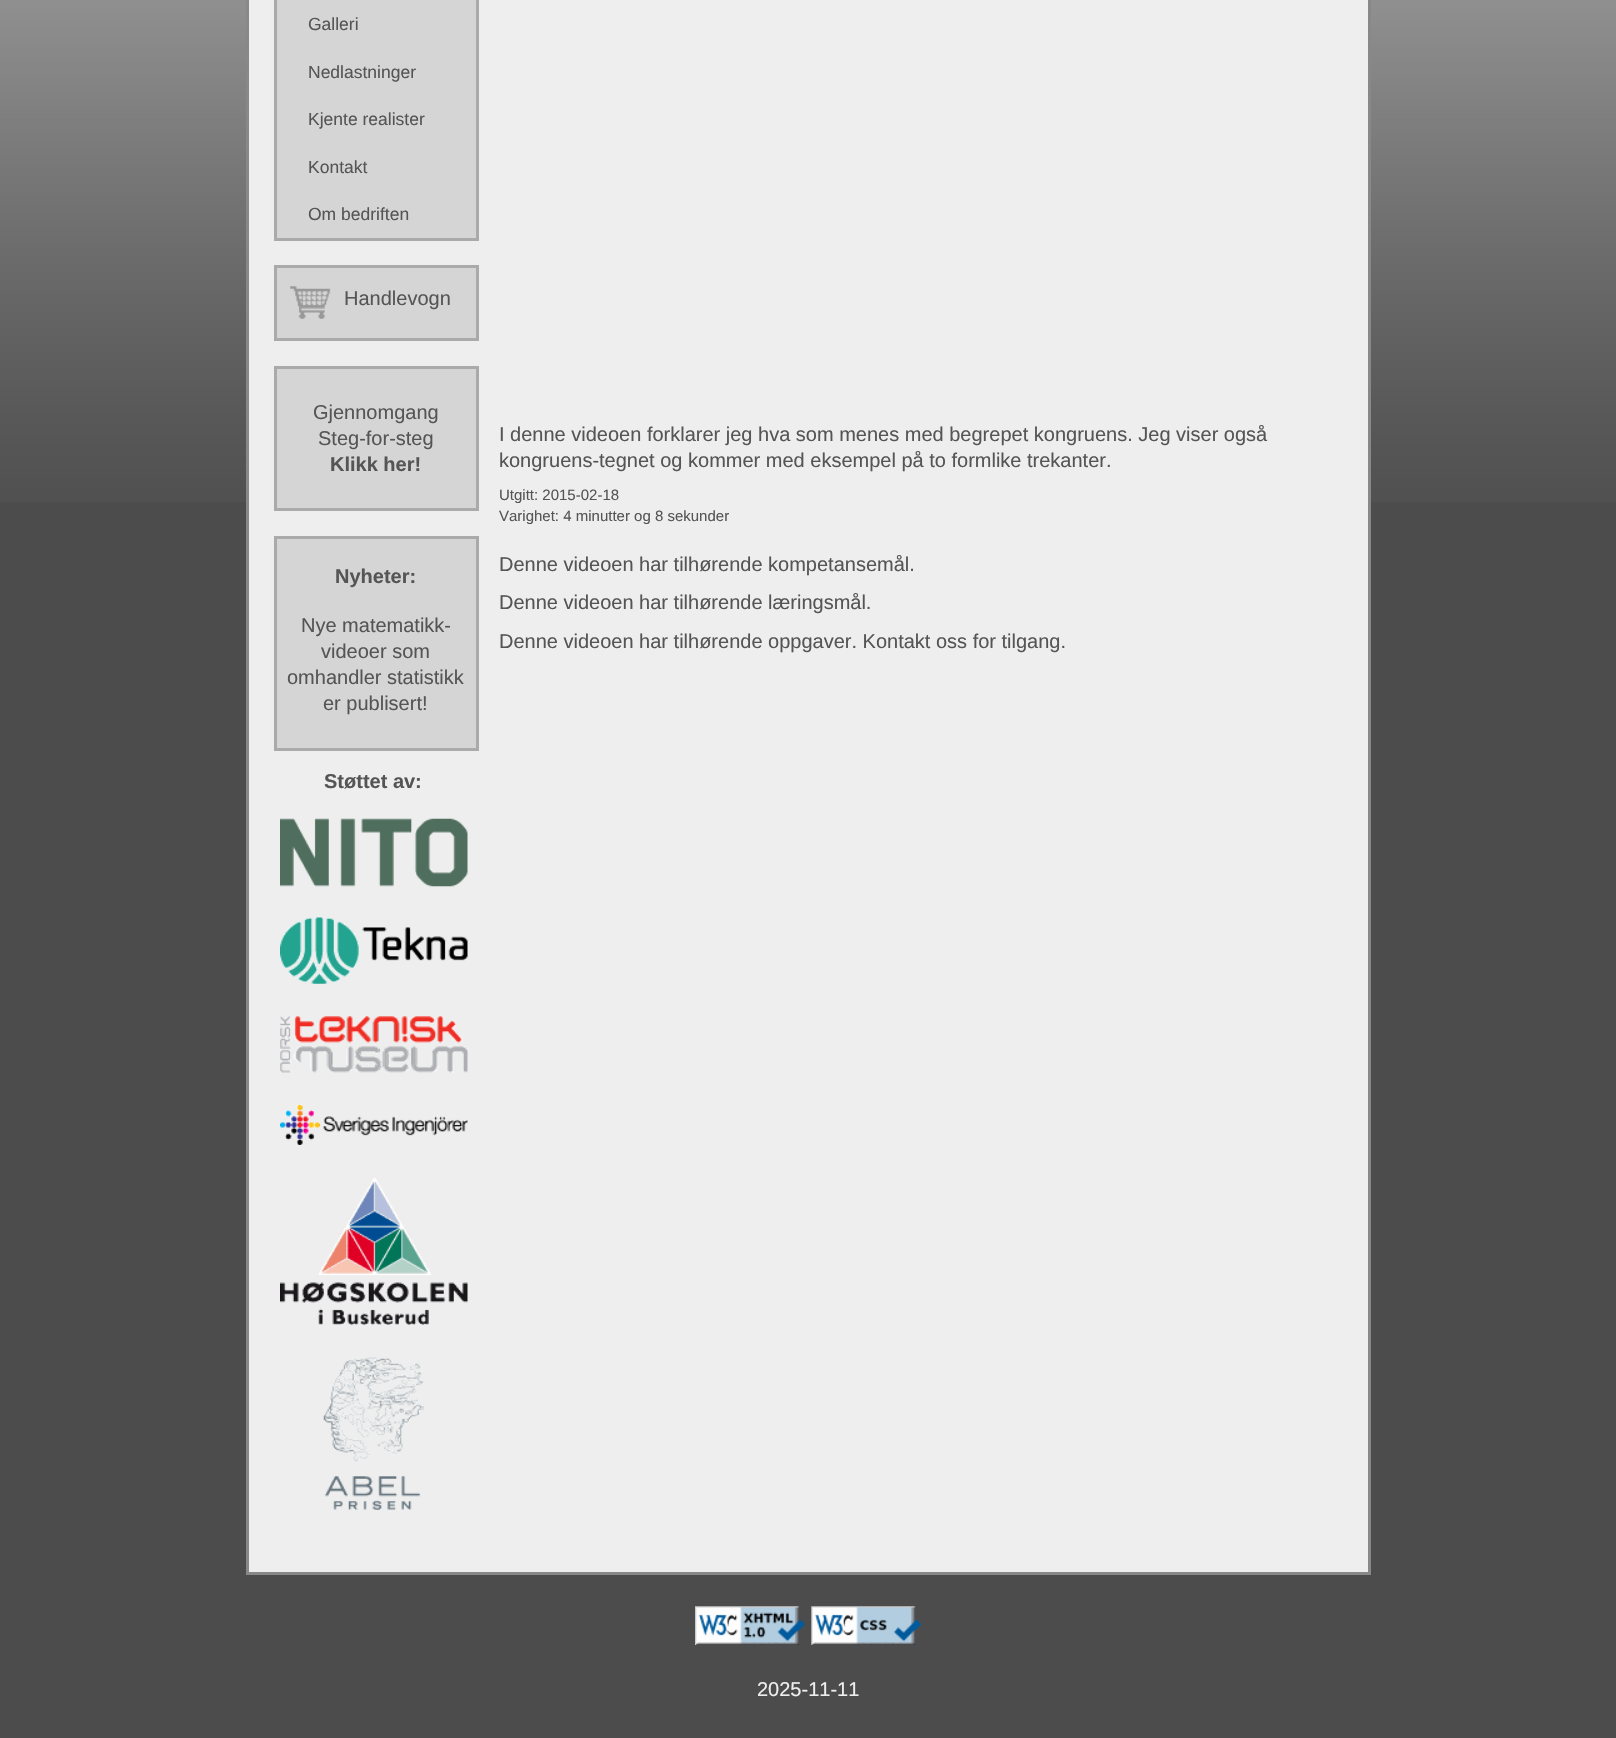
void draw(SkCanvas* canvas) {
	SkPaint fill;
	fill.setAntiAlias(true);
	auto makeFont = [&](const char* family, int weight, float size, bool italic = false) {
		SkFontStyle style(weight, SkFontStyle::kNormal_Width,
			italic ? SkFontStyle::kItalic_Slant : SkFontStyle::kUpright_Slant);
		SkFont result(fontMgr->matchFamilyStyle(family, style), size);
		result.setSubpixel(true);
		return result;
	};
	auto text = [&](const char* s, float x, float y, const SkFont& font) {
		canvas->drawString(s, x, y, font, fill);
	};
	auto box = [&](float l, float t, float r, float b) {
		canvas->drawRect(SkRect::MakeLTRB(l, t, r, b), fill);
	};
	auto picture = [&](const char* path, float l, float t, float r, float b) {
		auto image = SkImages::DeferredFromEncodedData(SkData::MakeFromFileName(path));
		canvas->drawImageRect(image, SkRect::MakeLTRB(l, t, r, b), SkSamplingOptions());
	};
	canvas->clear(0xFF4C4C4C);
	picture("image0.png", 0, 0, 1616, 502);
	fill.setColor(0xFFEEEEEE);
	canvas->drawRect(SkRect::MakeLTRB(247.5f, -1.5f, 1369.5f, 1573.5f), fill);
	fill.setStyle(SkPaint::kStroke_Style);
	fill.setStrokeWidth(3);
	fill.setColor(0xFF888888);
	canvas->drawRect(SkRect::MakeLTRB(247.5f, -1.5f, 1369.5f, 1573.5f), fill);
	fill.setStyle(SkPaint::kFill_Style);
	fill.setColor(0xFFD5D5D5);
	box(277, 0, 476, 238);
	fill.setColor(0xFFAAAAAA);
	box(476, 0, 479, 240);
	box(274, 238, 479, 241);
	box(274, 0, 277, 240);
	fill.setColor(0xFFD5D5D5);
	canvas->drawRect(SkRect::MakeLTRB(275.5f, 266.5f, 477.5f, 339.5f), fill);
	fill.setStyle(SkPaint::kStroke_Style);
	fill.setColor(0xFFAAAAAA);
	canvas->drawRect(SkRect::MakeLTRB(275.5f, 266.5f, 477.5f, 339.5f), fill);
	picture("image1.png", 290, 286, 331, 319);
	fill.setStyle(SkPaint::kFill_Style);
	fill.setColor(0xFFD5D5D5);
	canvas->drawRect(SkRect::MakeLTRB(275.5f, 367.5f, 477.5f, 509.5f), fill);
	fill.setStyle(SkPaint::kStroke_Style);
	fill.setColor(0xFFAAAAAA);
	canvas->drawRect(SkRect::MakeLTRB(275.5f, 367.5f, 477.5f, 509.5f), fill);
	fill.setStyle(SkPaint::kFill_Style);
	fill.setColor(0xFFD5D5D5);
	canvas->drawRect(SkRect::MakeLTRB(275.5f, 537.5f, 477.5f, 749.5f), fill);
	fill.setStyle(SkPaint::kStroke_Style);
	fill.setColor(0xFFAAAAAA);
	canvas->drawRect(SkRect::MakeLTRB(275.5f, 537.5f, 477.5f, 749.5f), fill);
	picture("image2.png", 280, 818, 468, 887);
	picture("image3.png", 280, 917, 468, 984);
	picture("image4.png", 280, 1016, 468, 1073);
	picture("image5.png", 280, 1105, 468, 1145);
	picture("image6.png", 280, 1177, 468, 1325);
	picture("image7.png", 323, 1357, 424, 1510);
	picture("image8.png", 695, 1606, 805, 1645);
	picture("image9.png", 811, 1606, 922, 1645);
	auto font1 = makeFont("Liberation Sans", 400, 17.5f);
	fill.setStyle(SkPaint::kFill_Style);
	fill.setColor(0xFF555555);
	text("Galleri", 308, 30, font1);
	text("Nedlastninger", 308, 78, font1);
	text("Kjente realister", 308, 125, font1);
	text("Kontakt", 308, 173, font1);
	text("Om bedriften", 308, 220, font1);
	auto font2 = makeFont("Liberation Sans", 400, 20);
	text("Handlevogn", 344, 305, font2);
	text("Gjennomgang", 313, 419, font2);
	text("Steg-for-steg", 318, 445, font2);
	auto font3 = makeFont("Liberation Sans", 700, 20);
	text("Klikk her!", 330, 471, font3);
	text("Nyheter:", 335, 583, font3);
	text("Nye matematikk-", 301, 632, font2);
	text("videoer som", 321, 658, font2);
	text("omhandler statistikk", 287, 684, font2);
	text("er publisert!", 323, 710, font2);
	text("Støttet av:", 324, 788, font3);
	text("I denne videoen forklarer jeg hva som menes med begrepet kongruens. Jeg viser også", 499, 441, font2);
	text("kongruens-tegnet og kommer med eksempel på to formlike trekanter.", 499, 467, font2);
	auto font4 = makeFont("Liberation Sans", 400, 15);
	text("Utgitt: 2015-02-18", 499, 500, font4);
	text("Varighet: 4 minutter og 8 sekunder", 499, 521, font4);
	text("Denne videoen har tilhørende kompetansemål.", 499, 571, font2);
	text("Denne videoen har tilhørende læringsmål.", 499, 609, font2);
	text("Denne videoen har tilhørende oppgaver. Kontakt oss for tilgang.", 499, 648, font2);
	fill.setColor(0xFFEEEEEE);
	text("2025-11-11", 757, 1696, font2);
}
